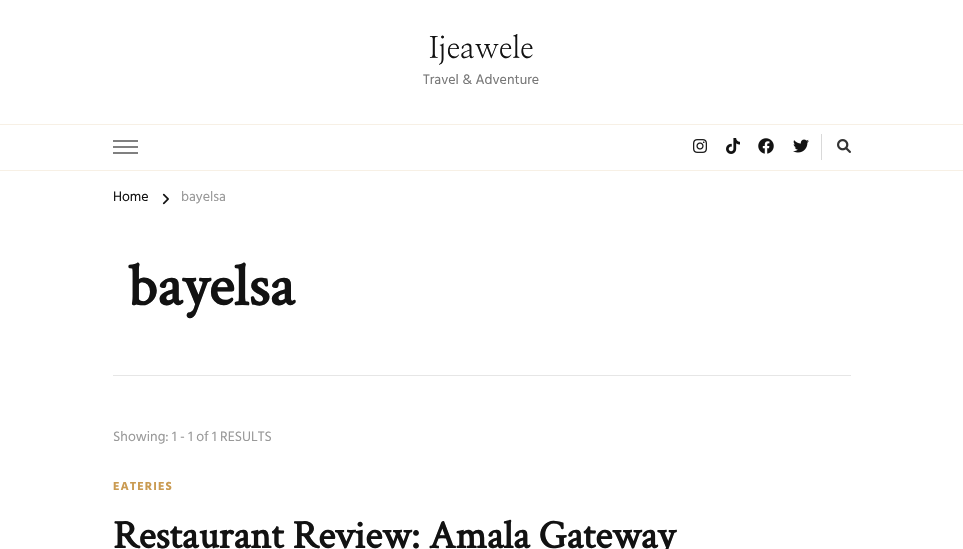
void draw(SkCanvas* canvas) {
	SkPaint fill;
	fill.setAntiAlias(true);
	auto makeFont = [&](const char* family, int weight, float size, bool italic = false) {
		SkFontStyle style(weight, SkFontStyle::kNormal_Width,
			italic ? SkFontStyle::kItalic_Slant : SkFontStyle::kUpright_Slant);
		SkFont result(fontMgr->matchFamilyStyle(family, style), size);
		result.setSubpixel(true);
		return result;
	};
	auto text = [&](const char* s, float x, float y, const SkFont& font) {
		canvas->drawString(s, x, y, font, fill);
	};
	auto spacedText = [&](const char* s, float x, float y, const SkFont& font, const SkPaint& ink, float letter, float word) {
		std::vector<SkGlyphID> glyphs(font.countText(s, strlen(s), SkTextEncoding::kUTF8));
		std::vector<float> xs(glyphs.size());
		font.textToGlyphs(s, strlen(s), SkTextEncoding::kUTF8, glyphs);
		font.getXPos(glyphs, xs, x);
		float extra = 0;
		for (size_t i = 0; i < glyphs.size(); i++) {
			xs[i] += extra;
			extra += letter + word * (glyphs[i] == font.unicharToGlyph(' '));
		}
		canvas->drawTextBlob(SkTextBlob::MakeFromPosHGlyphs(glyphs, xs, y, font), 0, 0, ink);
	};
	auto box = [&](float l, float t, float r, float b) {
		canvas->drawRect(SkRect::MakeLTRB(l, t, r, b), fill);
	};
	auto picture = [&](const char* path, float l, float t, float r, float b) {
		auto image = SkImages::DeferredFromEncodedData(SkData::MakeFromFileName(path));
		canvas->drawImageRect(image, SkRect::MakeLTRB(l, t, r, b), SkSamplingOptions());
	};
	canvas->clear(0xFFFFFFFF);
	fill.setColor(0xFFF7F0E5);
	box(0, 124, 963, 125);
	box(0, 170, 963, 171);
	fill.setColor(0xFF808080);
	box(113, 140, 138, 142);
	box(113, 146, 138, 148);
	box(113, 152, 138, 154);
	picture("image0.png", 693, 139, 707, 153);
	picture("image1.png", 726, 138, 740, 154);
	picture("image2.png", 758, 138, 774, 154);
	picture("image3.png", 793, 139, 809, 153);
	fill.setColor(0xFFD9D9D9);
	box(821, 134, 822, 160);
	picture("image4.png", 837, 139, 851, 153);
	picture("image5.png", 162, 193, 169, 205);
	fill.setColor(0xFFE6E6E6);
	box(113, 375, 851, 376);
	auto font1 = makeFont("NanumMyeongjo", 400, 30);
	fill.setColor(0xFF121212);
	text("Ijeawele", 429, 58, font1);
	auto font2 = makeFont("Hind", 400, 14);
	fill.setColor(0xFF777777);
	text("Travel & Adventure", 423, 84, font2);
	fill.setColor(0xFF121212);
	text("Home", 113, 201, font2);
	fill.setColor(0xFF999999);
	text("bayelsa", 181, 201, font2);
	auto font3 = makeFont("Crimson Text", 700, 60);
	fill.setColor(0xFF121212);
	text("bayelsa", 128, 305, font3);
	fill.setColor(0xFF999999);
	text("Showing: 1 - 1 of 1 RESULTS", 113, 441, font2);
	auto font4 = makeFont("Hind", 700, 12);
	fill.setColor(0xFFCA9B52);
	spacedText("EATERIES", 113, 490, font4, fill, 1, 0);
	auto font5 = makeFont("Crimson Text", 700, 40);
	fill.setColor(0xFF121212);
	text("Restaurant Review: Amala Gateway", 113, 548, font5);
}
